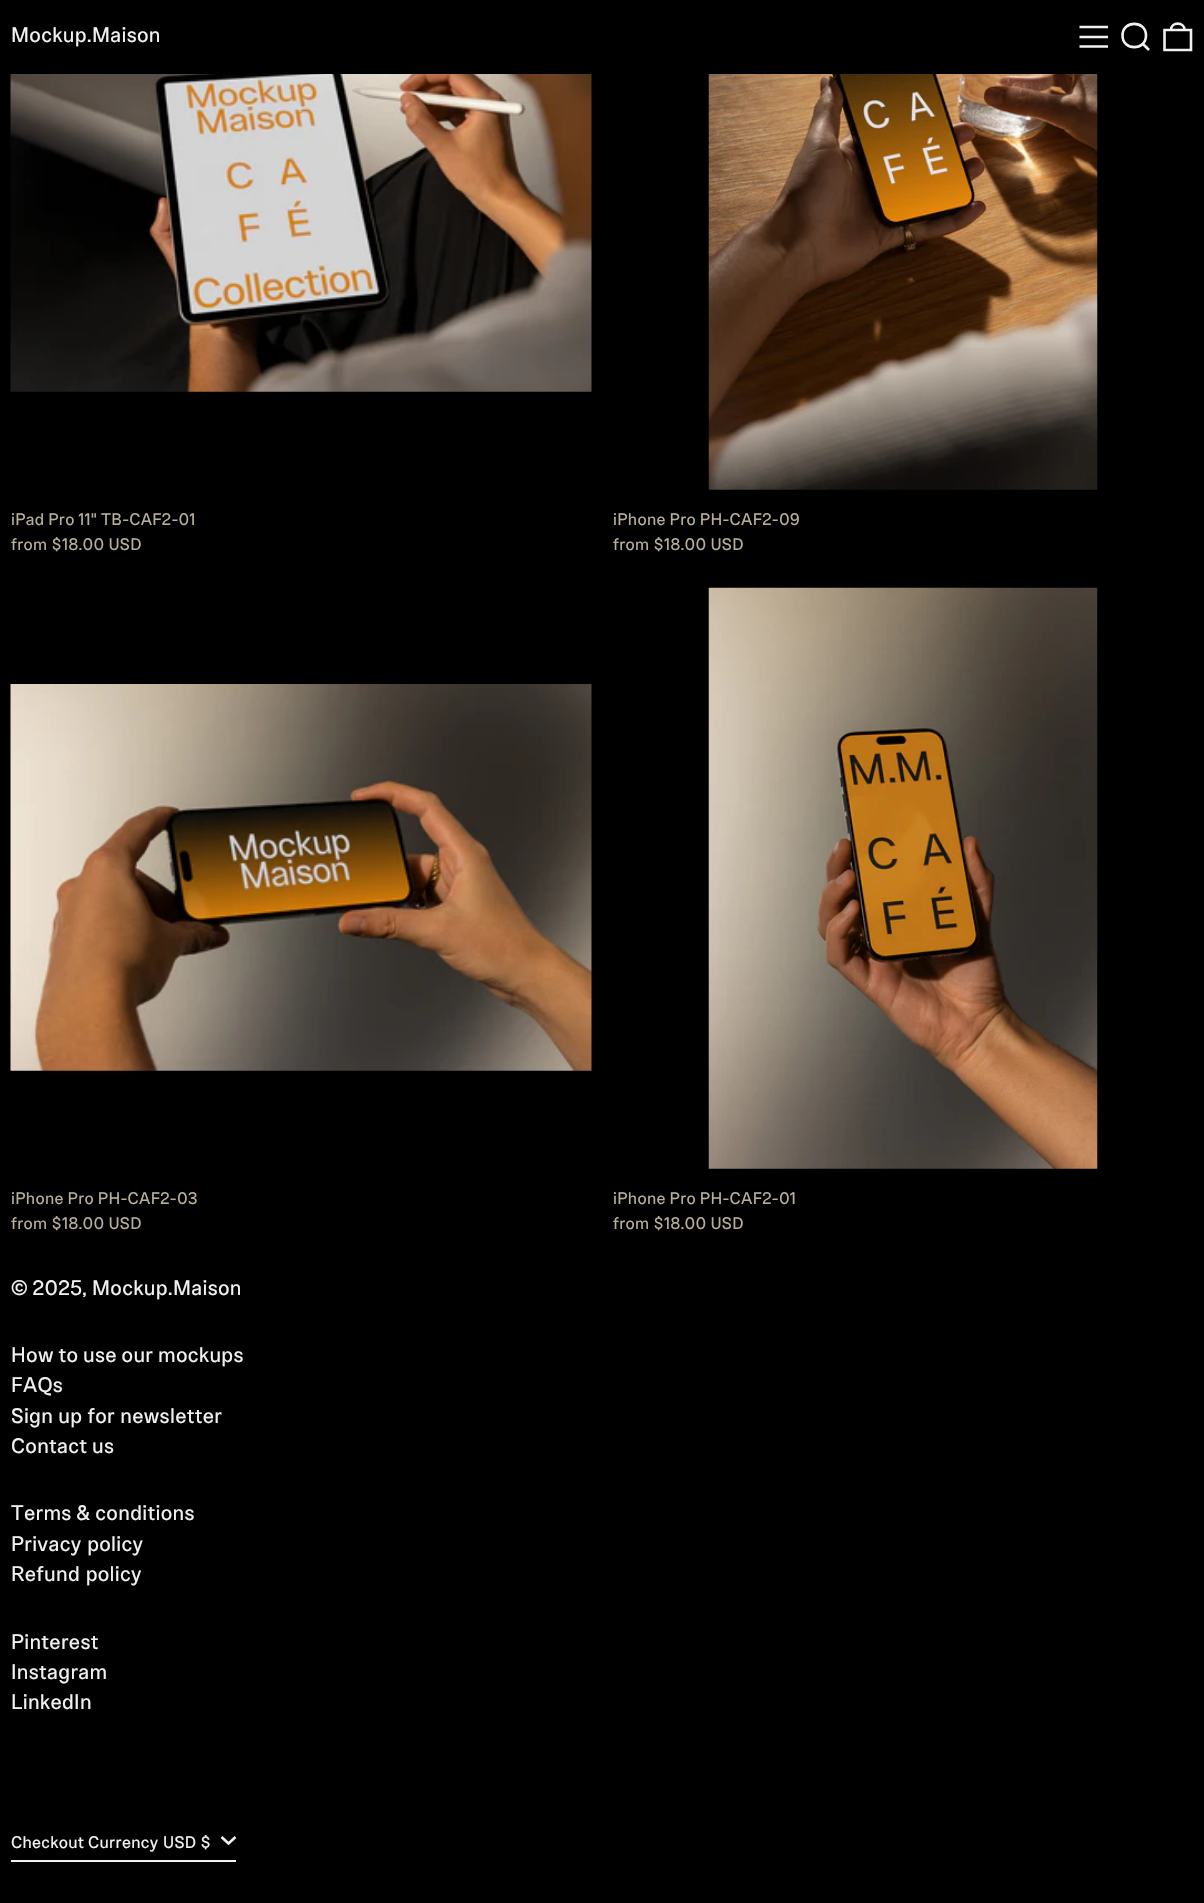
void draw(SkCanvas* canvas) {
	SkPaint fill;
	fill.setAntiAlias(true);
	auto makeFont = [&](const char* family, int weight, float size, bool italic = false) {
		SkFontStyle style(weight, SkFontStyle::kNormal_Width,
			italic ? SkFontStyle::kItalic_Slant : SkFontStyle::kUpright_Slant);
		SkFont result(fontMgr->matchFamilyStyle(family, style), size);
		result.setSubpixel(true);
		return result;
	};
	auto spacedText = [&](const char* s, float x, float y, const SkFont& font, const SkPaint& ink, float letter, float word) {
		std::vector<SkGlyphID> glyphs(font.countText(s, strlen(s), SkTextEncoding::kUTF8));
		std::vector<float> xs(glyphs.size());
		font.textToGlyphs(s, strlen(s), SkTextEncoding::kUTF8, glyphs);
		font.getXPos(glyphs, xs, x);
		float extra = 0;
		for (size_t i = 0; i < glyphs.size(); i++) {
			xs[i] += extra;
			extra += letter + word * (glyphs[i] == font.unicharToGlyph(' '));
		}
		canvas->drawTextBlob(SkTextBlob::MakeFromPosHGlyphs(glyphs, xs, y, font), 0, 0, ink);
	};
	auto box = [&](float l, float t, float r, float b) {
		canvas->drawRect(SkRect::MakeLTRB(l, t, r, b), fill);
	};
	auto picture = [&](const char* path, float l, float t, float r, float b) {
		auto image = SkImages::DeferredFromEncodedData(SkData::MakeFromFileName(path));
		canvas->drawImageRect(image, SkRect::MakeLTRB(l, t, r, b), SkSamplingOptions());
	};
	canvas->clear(0xFF000000);
	fill.setStyle(SkPaint::kStroke_Style);
	fill.setStrokeWidth(2.6f);
	fill.setColor(0xFFF1F1F1);
	canvas->drawPath(SkPathBuilder().moveTo(1079.5f, 27).lineTo(1108, 27).moveTo(1079.5f, 37).lineTo(1108, 37).moveTo(1079.5f, 46.5f).lineTo(1108, 46.5f).detach(), fill);
	canvas->drawPath(SkPathBuilder().moveTo(1122.5f, 35.5f).cubicTo(1122.5f, 51, 1146, 51, 1146, 35.5f).cubicTo(1146, 20, 1122.5f, 20, 1122.5f, 35.5f).close().moveTo(1143, 44).lineTo(1149, 50).detach(), fill);
	canvas->drawPath(SkPathBuilder().moveTo(1164.5f, 30).lineTo(1191, 30).lineTo(1191, 50).lineTo(1164.5f, 50).close().moveTo(1184.5f, 30).cubicTo(1184.5f, 21.5f, 1171, 21.5f, 1171, 30).detach(), fill);
	picture("image0.png", 10, 74, 592, 392);
	picture("image1.png", 708, 74, 1098, 490);
	picture("image2.png", 10, 684, 592, 1071);
	picture("image3.png", 708, 587, 1098, 1169);
	fill.setStyle(SkPaint::kFill_Style);
	box(11, 1860, 236, 1862);
	fill.setStyle(SkPaint::kStroke_Style);
	canvas->drawPath(SkPathBuilder().moveTo(221.5f, 1837).lineTo(228.5f, 1843.5f).lineTo(235.5f, 1837).detach(), fill);
	auto font1 = makeFont("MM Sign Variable", 400, 21);
	fill.setStyle(SkPaint::kFill_Style);
	spacedText("Mockup.Maison", 11, 42, font1, fill, 0.3f, 0);
	auto font2 = makeFont("MM Sign Variable", 400, 16.75f);
	fill.setColor(0xFFB8AE9C);
	spacedText("iPad Pro 11\" TB-CAF2-01", 11, 525, font2, fill, 0.3f, 0);
	spacedText("from $18.00 USD", 11, 550, font2, fill, 0.3f, 0);
	spacedText("iPhone Pro PH-CAF2-09", 613, 525, font2, fill, 0.3f, 0);
	spacedText("from $18.00 USD", 613, 550, font2, fill, 0.3f, 0);
	spacedText("iPhone Pro PH-CAF2-03", 11, 1204, font2, fill, 0.3f, 0);
	spacedText("from $18.00 USD", 11, 1229, font2, fill, 0.3f, 0);
	spacedText("iPhone Pro PH-CAF2-01", 613, 1204, font2, fill, 0.3f, 0);
	spacedText("from $18.00 USD", 613, 1229, font2, fill, 0.3f, 0);
	fill.setColor(0xFFF1F1F1);
	spacedText("© 2025,", 11, 1295, font1, fill, 0.3f, 0);
	spacedText("Mockup.Maison", 92, 1295, font1, fill, 0.3f, 0);
	spacedText("How to use our mockups", 11, 1362, font1, fill, 0.3f, 0);
	spacedText("FAQs", 11, 1392, font1, fill, 0.3f, 0);
	spacedText("Sign up for newsletter", 11, 1423, font1, fill, 0.3f, 0.5f);
	spacedText("Contact us", 11, 1453, font1, fill, 0.3f, 0);
	spacedText("Terms & conditions", 11, 1520, font1, fill, 0.3f, 0);
	spacedText("Privacy policy", 11, 1551, font1, fill, 0.3f, 1);
	spacedText("Refund policy", 11, 1581, font1, fill, 0.3f, 1);
	spacedText("Pinterest", 11, 1649, font1, fill, 0.3f, 0);
	spacedText("Instagram", 11, 1679, font1, fill, 0.3f, 0);
	spacedText("LinkedIn", 11, 1709, font1, fill, 0.3f, 0);
	spacedText("Checkout Currency", 11, 1848, font2, fill, 0.3f, 0);
	spacedText("USD $", 163, 1848, font2, fill, 0.3f, 0);
}
